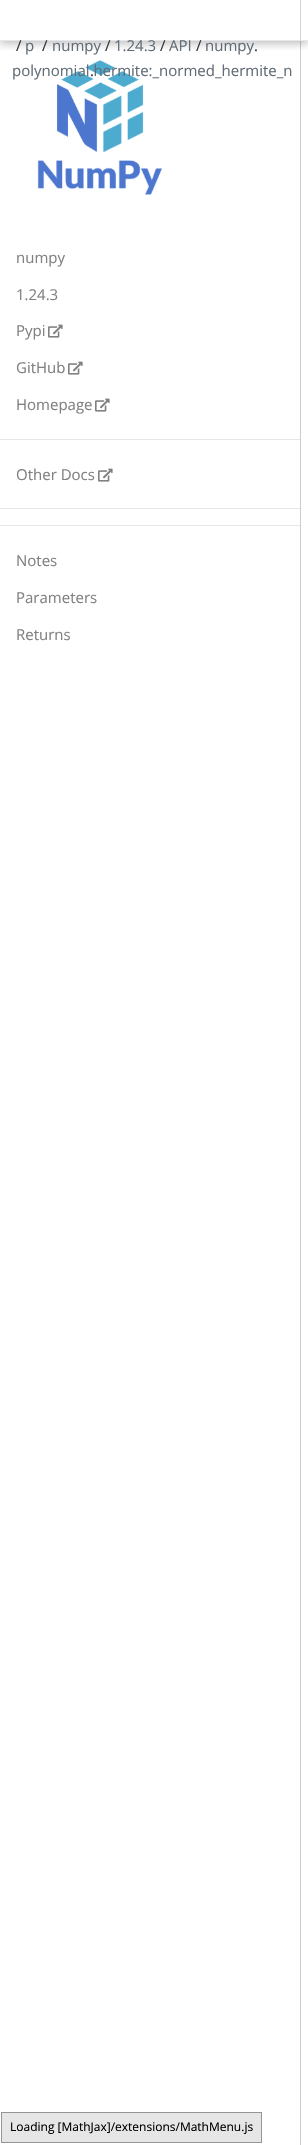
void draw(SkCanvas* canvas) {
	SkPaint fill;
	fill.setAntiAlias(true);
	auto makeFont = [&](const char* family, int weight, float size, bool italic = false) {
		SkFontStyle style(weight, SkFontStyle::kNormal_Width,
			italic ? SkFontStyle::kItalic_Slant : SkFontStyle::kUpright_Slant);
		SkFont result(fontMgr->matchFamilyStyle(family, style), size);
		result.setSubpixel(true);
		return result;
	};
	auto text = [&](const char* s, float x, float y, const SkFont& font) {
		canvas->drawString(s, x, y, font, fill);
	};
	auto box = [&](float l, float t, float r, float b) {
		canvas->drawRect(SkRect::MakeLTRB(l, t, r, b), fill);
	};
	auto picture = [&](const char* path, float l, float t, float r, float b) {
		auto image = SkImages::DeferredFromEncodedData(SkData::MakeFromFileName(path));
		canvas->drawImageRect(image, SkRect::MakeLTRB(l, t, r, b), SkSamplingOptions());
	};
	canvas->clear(0xFFFFFFFF);
	fill.setColor(0xFFCCCCCC);
	box(300, 41, 301, 2145);
	fill.setColor(0xFFD4D4D4);
	box(300, 0, 301, 41);
	canvas->save();
	canvas->clipRect(SkRect::MakeLTRB(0, 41, 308, 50));
	fill.setColor(0x3D000000);
	fill.setMaskFilter(SkMaskFilter::MakeBlur(kNormal_SkBlurStyle, 4));
	canvas->drawRect(SkRect::MakeLTRB(0, 1, 308, 44), fill);
	fill.setMaskFilter(nullptr);
	canvas->restore();
	fill.setColor(0xFFE5E7EB);
	box(0, 40, 308, 41);
	picture("image0.png", 37, 60, 163, 195);
	picture("image1.png", 48, 324, 63, 338);
	picture("image1.png", 68, 361, 83, 375);
	picture("image1.png", 95, 398, 110, 412);
	box(0, 439, 300, 440);
	picture("image1.png", 98, 468, 113, 482);
	box(0, 508, 300, 509);
	box(0, 525, 300, 526);
	fill.setColor(0xFFE6E6E6);
	canvas->drawRect(SkRect::MakeLTRB(1.5f, 2112.5f, 261.5f, 2142.5f), fill);
	fill.setStyle(SkPaint::kStroke_Style);
	fill.setStrokeWidth(1);
	fill.setColor(0xFF959595);
	canvas->drawRect(SkRect::MakeLTRB(1.5f, 2112.5f, 261.5f, 2142.5f), fill);
	auto font1 = makeFont("Open Sans", 400, 15);
	fill.setStyle(SkPaint::kFill_Style);
	fill.setColor(0xFF333333);
	text("/", 16, 51, font1);
	fill.setColor(0xFF606C76);
	text("p", 25, 51, font1);
	fill.setColor(0xFF333333);
	text("/", 42, 51, font1);
	fill.setColor(0xFF606C76);
	text("numpy", 52, 51, font1);
	fill.setColor(0xFF333333);
	text("/", 105, 51, font1);
	fill.setColor(0xFF606C76);
	text("1.24.3", 114, 51, font1);
	fill.setColor(0xFF333333);
	text("/", 160, 51, font1);
	fill.setColor(0xFF606C76);
	text("API", 169, 51, font1);
	fill.setColor(0xFF333333);
	text("/", 196, 51, font1);
	fill.setColor(0xFF606C76);
	text("numpy", 205, 51, font1);
	fill.setColor(0xFF333333);
	text(".", 254, 51, font1);
	fill.setColor(0xFF606C76);
	text("polynomial hermite:_normed_hermite_n", 12, 76, font1);
	fill.setColor(0xFF333333);
	text(".", 90, 76, font1);
	fill.setColor(0xFF818181);
	text("numpy", 16, 263, font1);
	text("1.24.3", 16, 300, font1);
	text("Pypi", 16, 336, font1);
	text("GitHub", 16, 373, font1);
	text("Homepage", 16, 410, font1);
	text("Other Docs", 16, 480, font1);
	text("Notes", 16, 566, font1);
	text("Parameters", 16, 603, font1);
	text("Returns", 16, 640, font1);
	auto font2 = makeFont("Open Sans", 400, 12);
	fill.setColor(0xFF000000);
	text("Loading [MathJax]/extensions/MathMenu.js", 10, 2131, font2);
}
